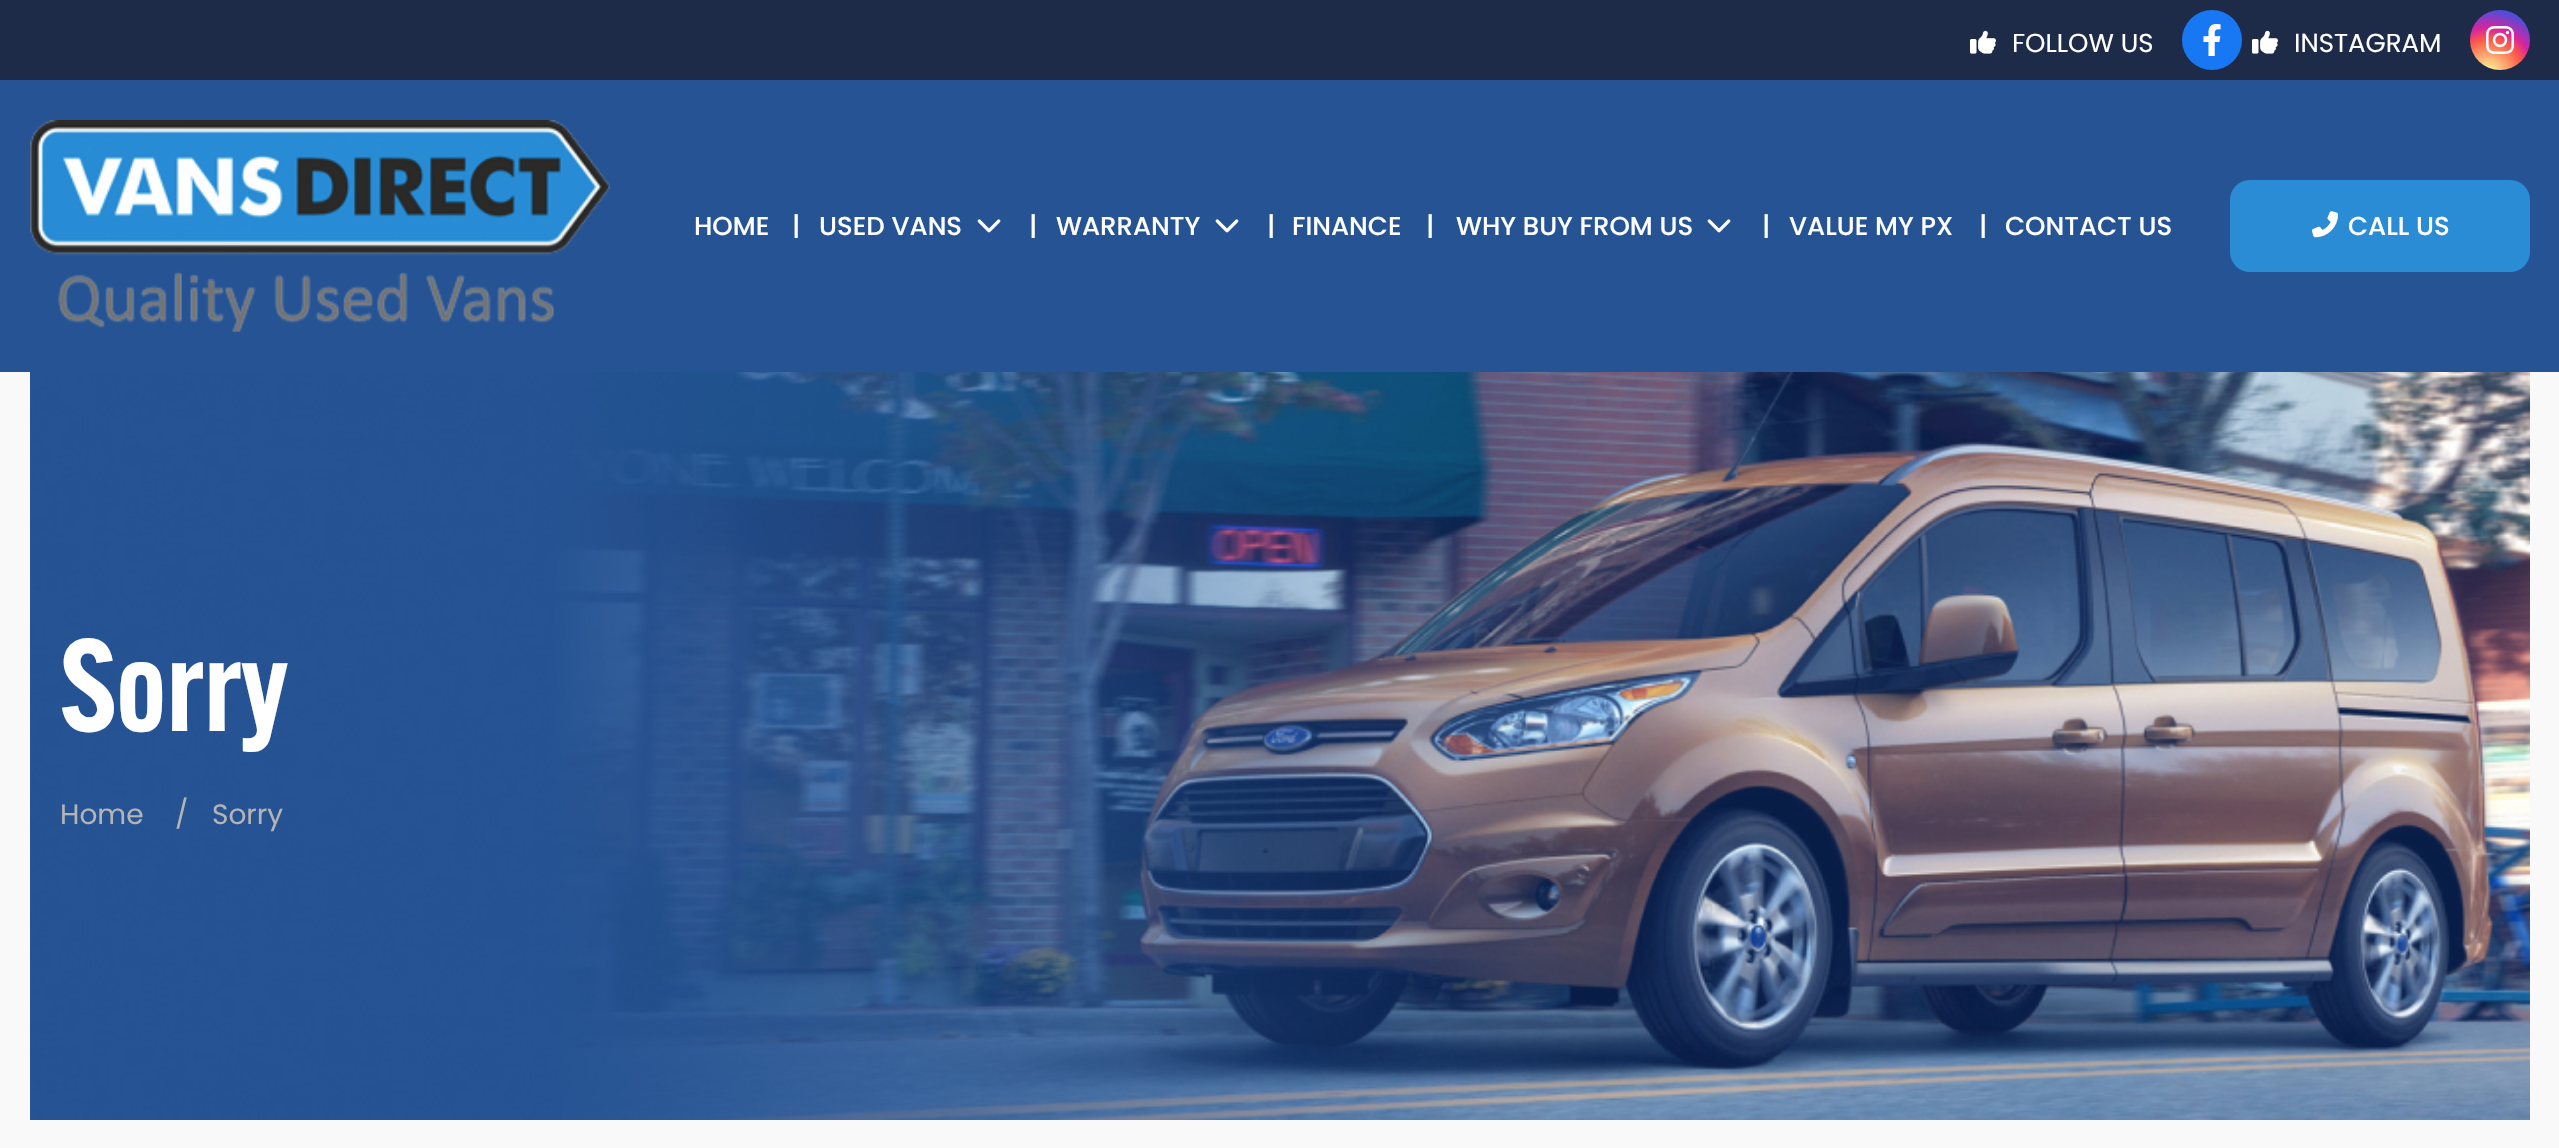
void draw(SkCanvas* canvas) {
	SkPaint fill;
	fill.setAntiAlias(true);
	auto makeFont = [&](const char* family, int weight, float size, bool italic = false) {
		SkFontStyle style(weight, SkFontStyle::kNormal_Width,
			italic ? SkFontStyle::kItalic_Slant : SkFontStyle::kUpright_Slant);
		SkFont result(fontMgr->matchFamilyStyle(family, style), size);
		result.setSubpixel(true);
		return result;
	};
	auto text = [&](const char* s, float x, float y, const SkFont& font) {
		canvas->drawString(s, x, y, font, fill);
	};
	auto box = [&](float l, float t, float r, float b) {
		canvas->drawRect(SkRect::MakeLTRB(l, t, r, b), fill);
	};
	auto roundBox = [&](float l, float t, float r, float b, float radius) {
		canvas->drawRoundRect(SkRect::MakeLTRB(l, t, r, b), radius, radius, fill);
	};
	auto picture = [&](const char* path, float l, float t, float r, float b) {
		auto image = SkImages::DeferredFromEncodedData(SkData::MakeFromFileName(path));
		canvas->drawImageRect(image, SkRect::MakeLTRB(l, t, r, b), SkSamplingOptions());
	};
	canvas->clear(0xFFF9F9F9);
	fill.setColor(0xFF1D2A48);
	box(0, 0, 2559, 80);
	picture("image0.png", 1970, 30, 1996, 54);
	fill.setColor(0xFF1877F2);
	canvas->drawCircle(2212, 40, 30, fill);
	picture("image1.png", 2203, 24, 2221, 56);
	picture("image0.png", 2252, 30, 2278, 54);
	{
		const SkColor colors[] = {0xFFFDF497, 0xFFFDF497, 0xFFFD5949, 0xFFD6249F, 0xFF285AEB};
		const float stops[] = {0, 0.05f, 0.45f, 0.6f, 0.9f};
		fill.setShader(SkGradientShader::MakeRadial({2488, 74}, 77, colors, stops, 5, SkTileMode::kClamp));
		fill.setAlpha(255);
	}
	canvas->drawCircle(2500, 40, 30, fill);
	picture("image2.png", 2486, 26, 2514, 54);
	fill.setShader(nullptr);
	fill.setColor(0xFF255393);
	box(0, 80, 2559, 372);
	picture("image3.png", 30, 120, 610, 332);
	picture("image4.png", 977, 219, 1001, 233);
	picture("image4.png", 1215, 219, 1239, 233);
	picture("image4.png", 1707, 219, 1731, 233);
	fill.setColor(0xFF298CD5);
	roundBox(2230, 180, 2530, 272, 20);
	picture("image5.png", 2312, 211, 2338, 238);
	picture("image6.png", 30, 372, 2530, 1120);
	auto font1 = makeFont("Poppins", 400, 26);
	fill.setColor(0xFFFFFFFF);
	text("FOLLOW US", 2012, 52, font1);
	text("INSTAGRAM", 2294, 52, font1);
	auto font2 = makeFont("Poppins", 500, 26);
	text("HOME", 694, 235, font2);
	text("|", 792, 235, font2);
	text("USED VANS", 819, 235, font2);
	text("|", 1029, 235, font2);
	text("WARRANTY", 1056, 235, font2);
	text("|", 1267, 235, font2);
	text("FINANCE", 1292, 235, font2);
	text("|", 1426, 235, font2);
	text("WHY BUY FROM US", 1456, 235, font2);
	text("|", 1762, 235, font2);
	text("VALUE MY PX", 1789, 235, font2);
	text("|", 1979, 235, font2);
	text("CONTACT US", 2005, 235, font2);
	text("CALL US", 2348, 235, font2);
	auto font3 = makeFont("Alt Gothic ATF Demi", 600, 128);
	text("Sorry", 60, 731, font3);
	auto font4 = makeFont("Poppins", 400, 28);
	fill.setColor(0xFFB4B4B4);
	text("Home", 60, 824, font4);
	text("/", 175, 824, font4);
	text("Sorry", 212, 824, font4);
}
